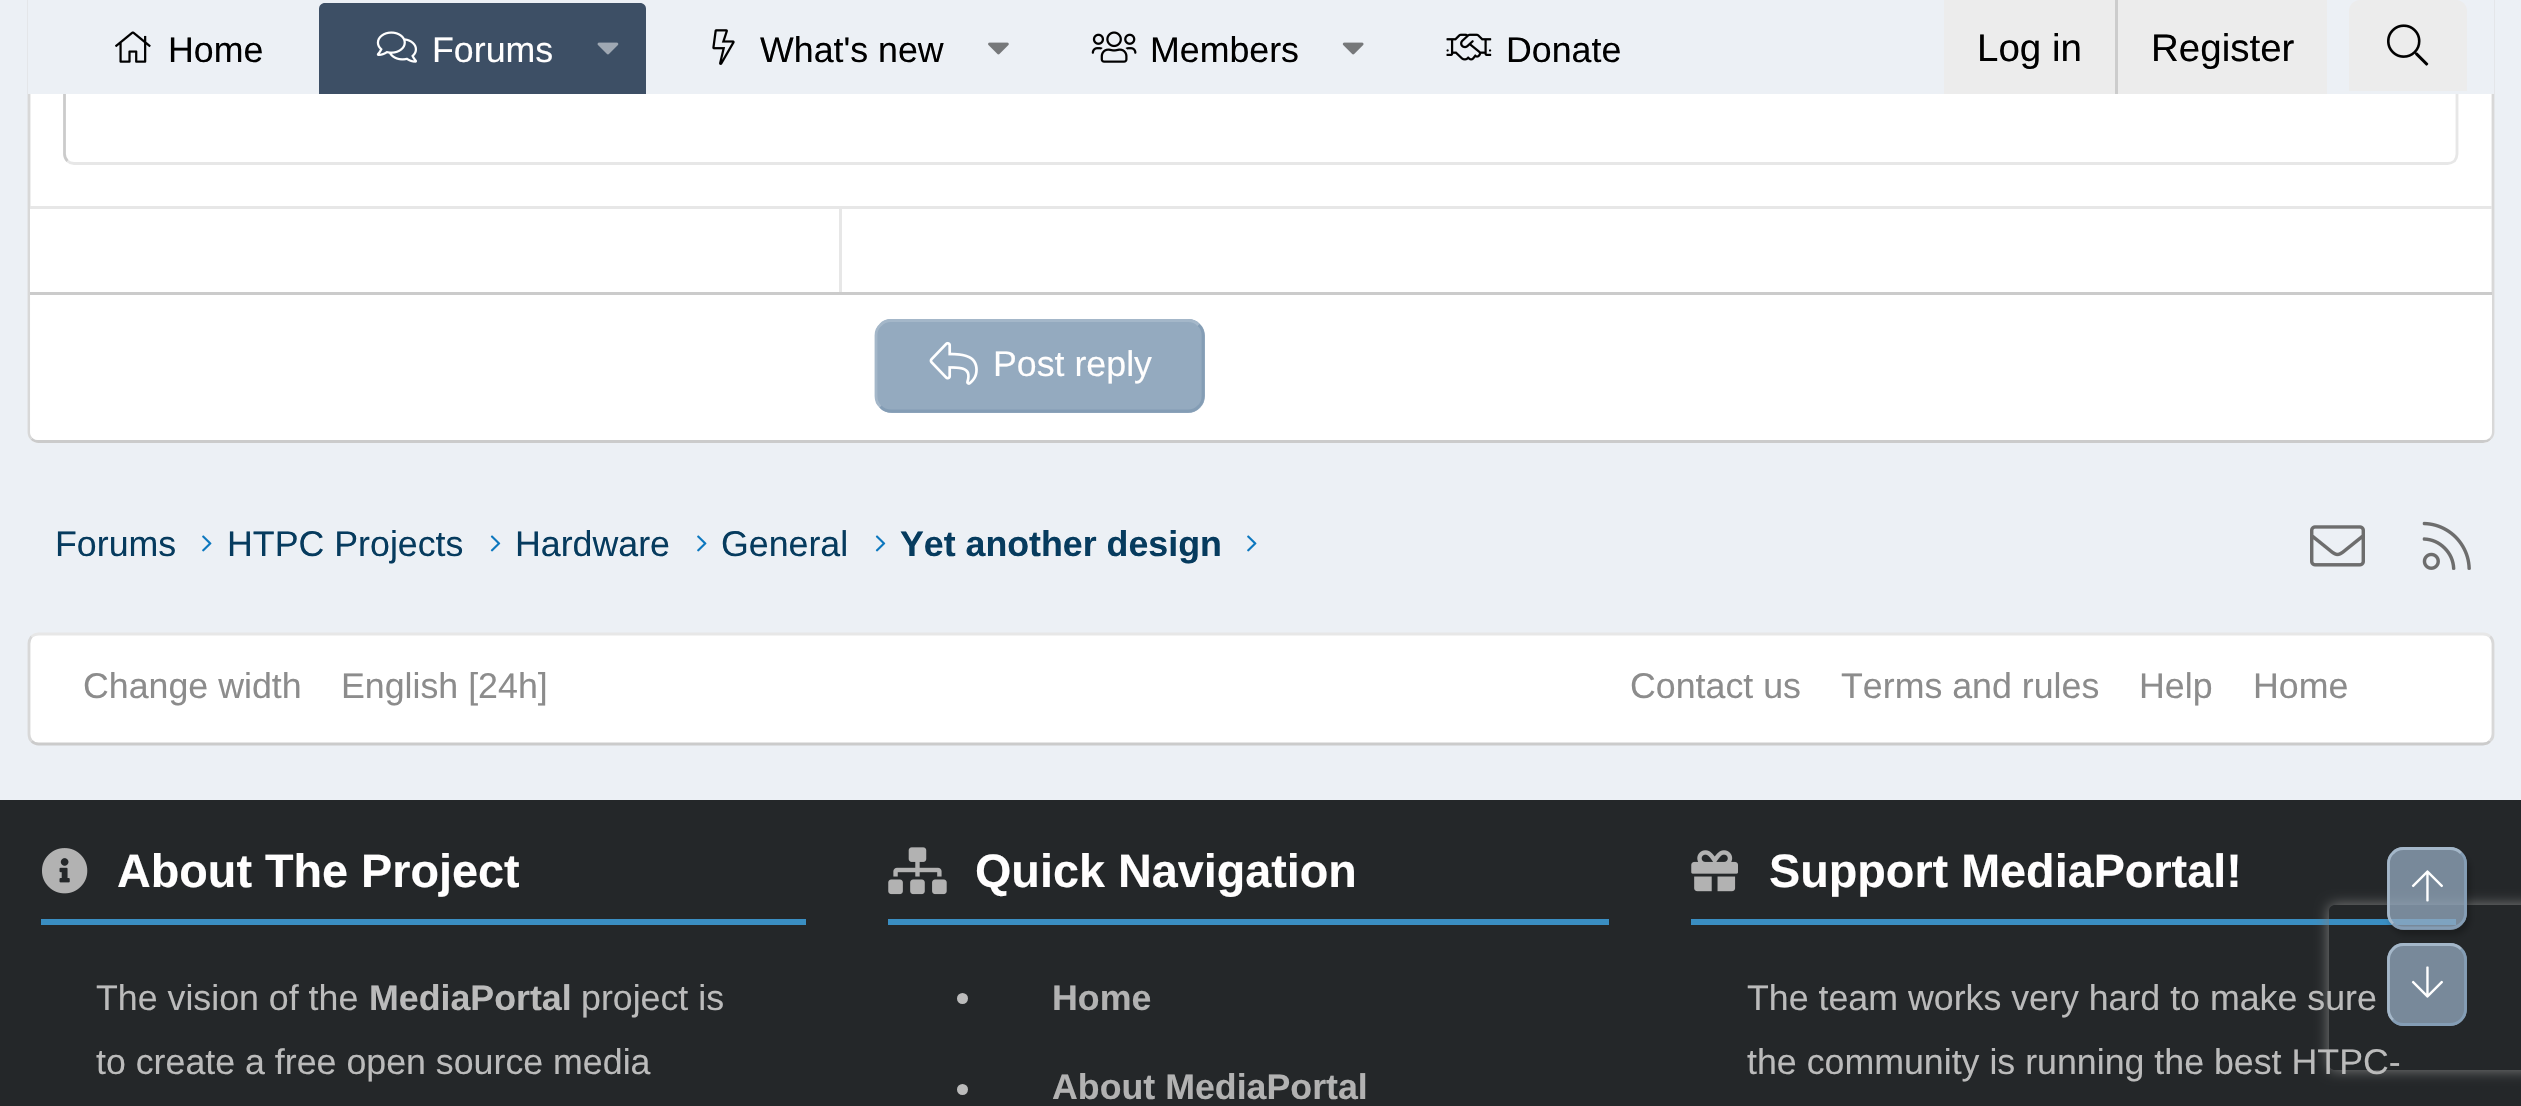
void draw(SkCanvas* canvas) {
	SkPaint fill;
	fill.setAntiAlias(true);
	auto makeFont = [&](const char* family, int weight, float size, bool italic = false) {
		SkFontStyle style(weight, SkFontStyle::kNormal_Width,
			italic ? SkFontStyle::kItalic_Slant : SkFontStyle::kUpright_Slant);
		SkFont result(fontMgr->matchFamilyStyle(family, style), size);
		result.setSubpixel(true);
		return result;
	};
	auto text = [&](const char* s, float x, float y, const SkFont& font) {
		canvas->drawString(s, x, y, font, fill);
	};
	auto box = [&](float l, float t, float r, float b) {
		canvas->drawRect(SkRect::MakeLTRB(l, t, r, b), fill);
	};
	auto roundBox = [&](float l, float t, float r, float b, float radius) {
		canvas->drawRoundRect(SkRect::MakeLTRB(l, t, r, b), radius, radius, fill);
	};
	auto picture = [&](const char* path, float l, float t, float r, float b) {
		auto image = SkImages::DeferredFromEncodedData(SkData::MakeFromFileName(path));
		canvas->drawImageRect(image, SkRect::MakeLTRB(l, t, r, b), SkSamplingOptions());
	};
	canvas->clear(0xFFECF0F5);
	fill.setColor(0xFFFFFFFF);
	roundBox(28, -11, 2494, 443, 11);
	fill.setStyle(SkPaint::kStroke_Style);
	fill.setStrokeWidth(2.8f);
	fill.setColor(0xFFD8D8D8);
	canvas->drawPath(SkPathBuilder().moveTo(2490, -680.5f).cubicTo(2492, -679, 2493, -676.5f, 2493, -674).lineTo(2493, 432).cubicTo(2493, 434.5f, 2492, 437, 2490, 438.5f).detach(), fill);
	fill.setColor(0xFFCBCBCB);
	canvas->drawPath(SkPathBuilder().moveTo(2490, 438.5f).cubicTo(2488.5f, 440.5f, 2486, 441.5f, 2483, 441.5f).lineTo(38.5f, 441.5f).cubicTo(36, 441.5f, 33.5f, 440.5f, 31.5f, 438.5f).detach(), fill);
	fill.setColor(0xFFD8D8D8);
	canvas->drawPath(SkPathBuilder().moveTo(31.5f, 438.5f).cubicTo(30, 437, 29, 434.5f, 29, 432).lineTo(29, -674).cubicTo(29, -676.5f, 30, -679, 31.5f, -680.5f).detach(), fill);
	fill.setColor(0xFFE7E7E7);
	canvas->drawPath(SkPathBuilder().moveTo(2454.5f, -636.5f).cubicTo(2456, -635, 2457, -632.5f, 2457, -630).lineTo(2457, 154).cubicTo(2457, 156.5f, 2456, 159, 2454.5f, 161).cubicTo(2452.5f, 162.5f, 2450, 163.5f, 2447.5f, 163.5f).lineTo(74, 163.5f).cubicTo(71.5f, 163.5f, 69, 162.5f, 67.5f, 161).detach(), fill);
	fill.setColor(0xFFCBCBCB);
	canvas->drawPath(SkPathBuilder().moveTo(67.5f, 161).cubicTo(65.5f, 159, 64.5f, 156.5f, 64.5f, 154).lineTo(64.5f, -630).cubicTo(64.5f, -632.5f, 65.5f, -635, 67.5f, -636.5f).cubicTo(69, -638.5f, 71.5f, -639.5f, 74, -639.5f).lineTo(2447.5f, -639.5f).cubicTo(2450, -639.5f, 2452.5f, -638.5f, 2454.5f, -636.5f).detach(), fill);
	fill.setStyle(SkPaint::kFill_Style);
	fill.setColor(0xFFECF0F5);
	box(28, 0, 2494, 94);
	picture("image0.png", 115, 31, 151, 63);
	fill.setColor(0xFF3D4F65);
	canvas->drawPath(SkPathBuilder().moveTo(325, 3).lineTo(640, 3).cubicTo(643.5f, 3, 646, 5.5f, 646, 9).lineTo(646, 94).lineTo(319, 94).lineTo(319, 9).cubicTo(319, 5.5f, 321.5f, 3, 325, 3).close().detach(), fill);
	picture("image1.png", 376, 31, 417, 63);
	picture("image2.png", 597, 42, 619, 55);
	picture("image3.png", 712, 29, 735, 65);
	picture("image4.png", 988, 42, 1009, 55);
	picture("image5.png", 1091, 31, 1137, 63);
	picture("image6.png", 1342, 42, 1364, 55);
	picture("image7.png", 1446, 33, 1492, 61);
	fill.setColor(0xFFECECEC);
	box(1944, 0, 2327, 94);
	fill.setColor(0xFFCCCCCC);
	box(2115, 0, 2118, 94);
	fill.setColor(0xFFECECEC);
	canvas->drawPath(SkPathBuilder().moveTo(2360, 0).lineTo(2456, 0).cubicTo(2462, 0, 2467, 5, 2467, 11).lineTo(2467, 91).lineTo(2349, 91).lineTo(2349, 11).cubicTo(2349, 5, 2354, 0, 2360, 0).close().detach(), fill);
	picture("image8.png", 2387, 24, 2429, 66);
	fill.setColor(0xFFE7E7E7);
	box(30, 206, 2492, 209);
	fill.setColor(0xFFFFFFFF);
	box(30, 209, 31, 292);
	fill.setColor(0xFFE7E7E7);
	box(839, 209, 842, 292);
	fill.setColor(0xFF242729);
	box(0, 800, 2521, 1106);
	fill.setColor(0xFF3A8EC2);
	box(1691, 919, 2456, 925);
	canvas->save();
	canvas->clipPath(SkPathBuilder(SkPathFillType::kEvenOdd).moveTo(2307, 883).lineTo(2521, 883).lineTo(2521, 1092).lineTo(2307, 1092).close().moveTo(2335, 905).lineTo(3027, 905).cubicTo(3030.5f, 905, 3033, 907.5f, 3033, 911).lineTo(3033, 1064).cubicTo(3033, 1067.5f, 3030.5f, 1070, 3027, 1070).lineTo(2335, 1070).cubicTo(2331.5f, 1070, 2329, 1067.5f, 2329, 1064).lineTo(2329, 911).cubicTo(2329, 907.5f, 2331.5f, 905, 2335, 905).close().detach(), true);
	fill.setColor(0xFF808080);
	fill.setMaskFilter(SkMaskFilter::MakeBlur(kNormal_SkBlurStyle, 7));
	canvas->drawRoundRect(SkRect::MakeLTRB(2329, 905, 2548, 1070), 6, 6, fill);
	fill.setMaskFilter(nullptr);
	canvas->restore();
	fill.setColor(0xE6FFFFFF);
	canvas->drawPath(SkPathBuilder().moveTo(30, 292).lineTo(2492, 292).lineTo(2492, 432).cubicTo(2492, 436.5f, 2488.5f, 440, 2484, 440).lineTo(38, 440).cubicTo(33.5f, 440, 30, 436.5f, 30, 432).close().detach(), fill);
	fill.setColor(0xFFCBCBCB);
	box(30, 292, 2492, 295);
	fill.setColor(0xFF94AABF);
	roundBox(875, 319, 1205, 413, 17);
	fill.setStyle(SkPaint::kStroke_Style);
	fill.setColor(0xFF849DB5);
	canvas->drawPath(SkPathBuilder().moveTo(1198.5f, 325).cubicTo(1201.5f, 327.5f, 1203, 331.5f, 1203, 335.5f).lineTo(1203, 396).cubicTo(1203, 400, 1201.5f, 404, 1198.5f, 406.5f).cubicTo(1196, 409.5f, 1192, 411, 1188, 411).lineTo(891, 411).cubicTo(887, 411, 883, 409.5f, 880.5f, 406.5f).detach(), fill);
	fill.setColor(0xFFA4B7C9);
	canvas->drawPath(SkPathBuilder().moveTo(880.5f, 406.5f).cubicTo(877.5f, 404, 876, 400, 876, 396).lineTo(876, 335.5f).cubicTo(876, 331.5f, 877.5f, 327.5f, 880.5f, 325).cubicTo(883, 322, 887, 320.5f, 891, 320.5f).lineTo(1188, 320.5f).cubicTo(1192, 320.5f, 1196, 322, 1198.5f, 325).detach(), fill);
	picture("image9.png", 929, 341, 978, 385);
	picture("image10.png", 202, 535, 212, 552);
	picture("image11.png", 490, 535, 501, 552);
	picture("image10.png", 697, 535, 707, 552);
	picture("image11.png", 875, 535, 886, 552);
	picture("image10.png", 1247, 535, 1257, 552);
	picture("image12.png", 2310, 525, 2365, 567);
	picture("image13.png", 2422, 521, 2471, 570);
	fill.setStyle(SkPaint::kFill_Style);
	fill.setColor(0xFFFFFFFF);
	roundBox(28, 633, 2494, 745, 11);
	fill.setStyle(SkPaint::kStroke_Style);
	fill.setColor(0xFFE7E7E7);
	canvas->drawPath(SkPathBuilder().moveTo(31.5f, 636.5f).cubicTo(33.5f, 635, 36, 634, 38.5f, 634).lineTo(2483, 634).cubicTo(2486, 634, 2488.5f, 635, 2490, 636.5f).detach(), fill);
	fill.setColor(0xFFD8D8D8);
	canvas->drawPath(SkPathBuilder().moveTo(2490, 636.5f).cubicTo(2492, 638.5f, 2493, 641, 2493, 643.5f).lineTo(2493, 734).cubicTo(2493, 737, 2492, 739.5f, 2490, 741).detach(), fill);
	fill.setColor(0xFFCBCBCB);
	canvas->drawPath(SkPathBuilder().moveTo(2490, 741).cubicTo(2488.5f, 743, 2486, 744, 2483, 744).lineTo(38.5f, 744).cubicTo(36, 744, 33.5f, 743, 31.5f, 741).detach(), fill);
	fill.setColor(0xFFD8D8D8);
	canvas->drawPath(SkPathBuilder().moveTo(31.5f, 741).cubicTo(30, 739.5f, 29, 737, 29, 734).lineTo(29, 643.5f).cubicTo(29, 641, 30, 638.5f, 31.5f, 636.5f).detach(), fill);
	fill.setStyle(SkPaint::kFill_Style);
	fill.setColor(0xFF3A8EC2);
	box(41, 919, 806, 925);
	picture("image14.png", 42, 848, 88, 894);
	box(888, 919, 1609, 925);
	picture("image15.png", 888, 847, 947, 895);
	fill.setColor(0xFFBBBBBB);
	canvas->drawCircle(962.5f, 998.5f, 5.5f, fill);
	canvas->drawCircle(962.5f, 1089.5f, 5.5f, fill);
	picture("image16.png", 1691, 850, 1738, 892);
	canvas->save();
	canvas->clipPath(SkPathBuilder(SkPathFillType::kEvenOdd).moveTo(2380, 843).lineTo(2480, 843).lineTo(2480, 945).lineTo(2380, 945).close().moveTo(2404, 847).lineTo(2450, 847).cubicTo(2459.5f, 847, 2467, 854.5f, 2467, 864).lineTo(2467, 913).cubicTo(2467, 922.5f, 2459.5f, 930, 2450, 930).lineTo(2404, 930).cubicTo(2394.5f, 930, 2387, 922.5f, 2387, 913).lineTo(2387, 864).cubicTo(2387, 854.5f, 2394.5f, 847, 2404, 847).close().detach(), true);
	fill.setColor(0x40000000);
	fill.setMaskFilter(SkMaskFilter::MakeBlur(kNormal_SkBlurStyle, 3));
	canvas->drawRoundRect(SkRect::MakeLTRB(2390, 853, 2470, 935), 17, 17, fill);
	fill.setMaskFilter(nullptr);
	canvas->restore();
	fill.setColor(0xBF94AABF);
	roundBox(2387, 847, 2467, 930, 17);
	fill.setStyle(SkPaint::kStroke_Style);
	fill.setColor(0xFF849DB5);
	canvas->drawPath(SkPathBuilder().moveTo(2461, 853).cubicTo(2464, 855.5f, 2465.5f, 859.5f, 2465.5f, 863.5f).lineTo(2465.5f, 913).cubicTo(2465.5f, 917, 2464, 921, 2461, 923.5f).cubicTo(2458, 926.5f, 2454.5f, 928, 2450, 928).lineTo(2403.5f, 928).cubicTo(2399.5f, 928, 2395.5f, 926.5f, 2393, 923.5f).detach(), fill);
	fill.setColor(0xFFA4B7C9);
	canvas->drawPath(SkPathBuilder().moveTo(2393, 923.5f).cubicTo(2390, 921, 2388.5f, 917, 2388.5f, 913).lineTo(2388.5f, 863.5f).cubicTo(2388.5f, 859.5f, 2390, 855.5f, 2393, 853).cubicTo(2395.5f, 850, 2399.5f, 848.5f, 2403.5f, 848.5f).lineTo(2450, 848.5f).cubicTo(2454.5f, 848.5f, 2458, 850, 2461, 853).detach(), fill);
	picture("image17.png", 2411, 870, 2443, 902);
	fill.setStyle(SkPaint::kFill_Style);
	fill.setColor(0xBF94AABF);
	roundBox(2387, 943, 2467, 1026, 17);
	fill.setStyle(SkPaint::kStroke_Style);
	fill.setColor(0xFF849DB5);
	canvas->drawPath(SkPathBuilder().moveTo(2461, 949).cubicTo(2464, 952, 2465.5f, 955.5f, 2465.5f, 960).lineTo(2465.5f, 1009).cubicTo(2465.5f, 1013.5f, 2464, 1017, 2461, 1020).cubicTo(2458, 1023, 2454.5f, 1024.5f, 2450, 1024.5f).lineTo(2403.5f, 1024.5f).cubicTo(2399.5f, 1024.5f, 2395.5f, 1023, 2393, 1020).detach(), fill);
	fill.setColor(0xFFA4B7C9);
	canvas->drawPath(SkPathBuilder().moveTo(2393, 1020).cubicTo(2390, 1017, 2388.5f, 1013.5f, 2388.5f, 1009).lineTo(2388.5f, 960).cubicTo(2388.5f, 955.5f, 2390, 952, 2393, 949).cubicTo(2395.5f, 946, 2399.5f, 944.5f, 2403.5f, 944.5f).lineTo(2450, 944.5f).cubicTo(2454.5f, 944.5f, 2458, 946, 2461, 949).detach(), fill);
	picture("image18.png", 2411, 966, 2443, 998);
	auto font1 = makeFont("Liberation Sans", 400, 35.75f);
	fill.setStyle(SkPaint::kFill_Style);
	fill.setColor(0xFF000000);
	text("Home", 168, 62, font1);
	fill.setColor(0xFFFFFEFE);
	text("Forums", 432, 62, font1);
	fill.setColor(0xFF000000);
	text("What's new", 760, 62, font1);
	text("Members", 1150, 62, font1);
	text("Donate", 1506, 62, font1);
	auto font2 = makeFont("Liberation Sans", 400, 38.5f);
	text("Log in", 1977, 61, font2);
	text("Register", 2151, 61, font2);
	fill.setColor(0xFFFFFEFE);
	text("Post reply", 993, 376, font1);
	fill.setColor(0xFF063B5E);
	text("Forums", 55, 556, font1);
	text("HTPC Projects", 227, 556, font1);
	text("Hardware", 515, 556, font1);
	text("General", 721, 556, font1);
	auto font3 = makeFont("Liberation Sans", 700, 35.75f);
	text("Yet another design", 900, 556, font3);
	fill.setColor(0xFF8C8C8C);
	text("Change width", 83, 698, font1);
	text("English [24h]", 341, 698, font1);
	text("Contact us", 1630, 698, font1);
	text("Terms and rules", 1841, 698, font1);
	text("Help", 2139, 698, font1);
	text("Home", 2253, 698, font1);
	auto font4 = makeFont("Liberation Sans", 700, 46.75f);
	fill.setColor(0xFFFFFEFE);
	text("About The Project", 117, 887, font4);
	fill.setColor(0xFFBBBBBB);
	text("The vision of the", 96, 1010, font1);
	text("MediaPortal", 369, 1010, font3);
	text("project is", 581, 1010, font1);
	text("to create a free open source media", 96, 1074, font1);
	fill.setColor(0xFFFFFEFE);
	text("Quick Navigation", 975, 887, font4);
	fill.setColor(0xFFB2B2B2);
	text("Home", 1052, 1010, font3);
	text("About MediaPortal", 1052, 1099, font3);
	fill.setColor(0xFFFFFEFE);
	text("Support MediaPortal!", 1769, 887, font4);
	fill.setColor(0xFFBBBBBB);
	text("The team works very hard to make sure", 1747, 1010, font1);
	text("the community is running the best HTPC-", 1747, 1074, font1);
}
